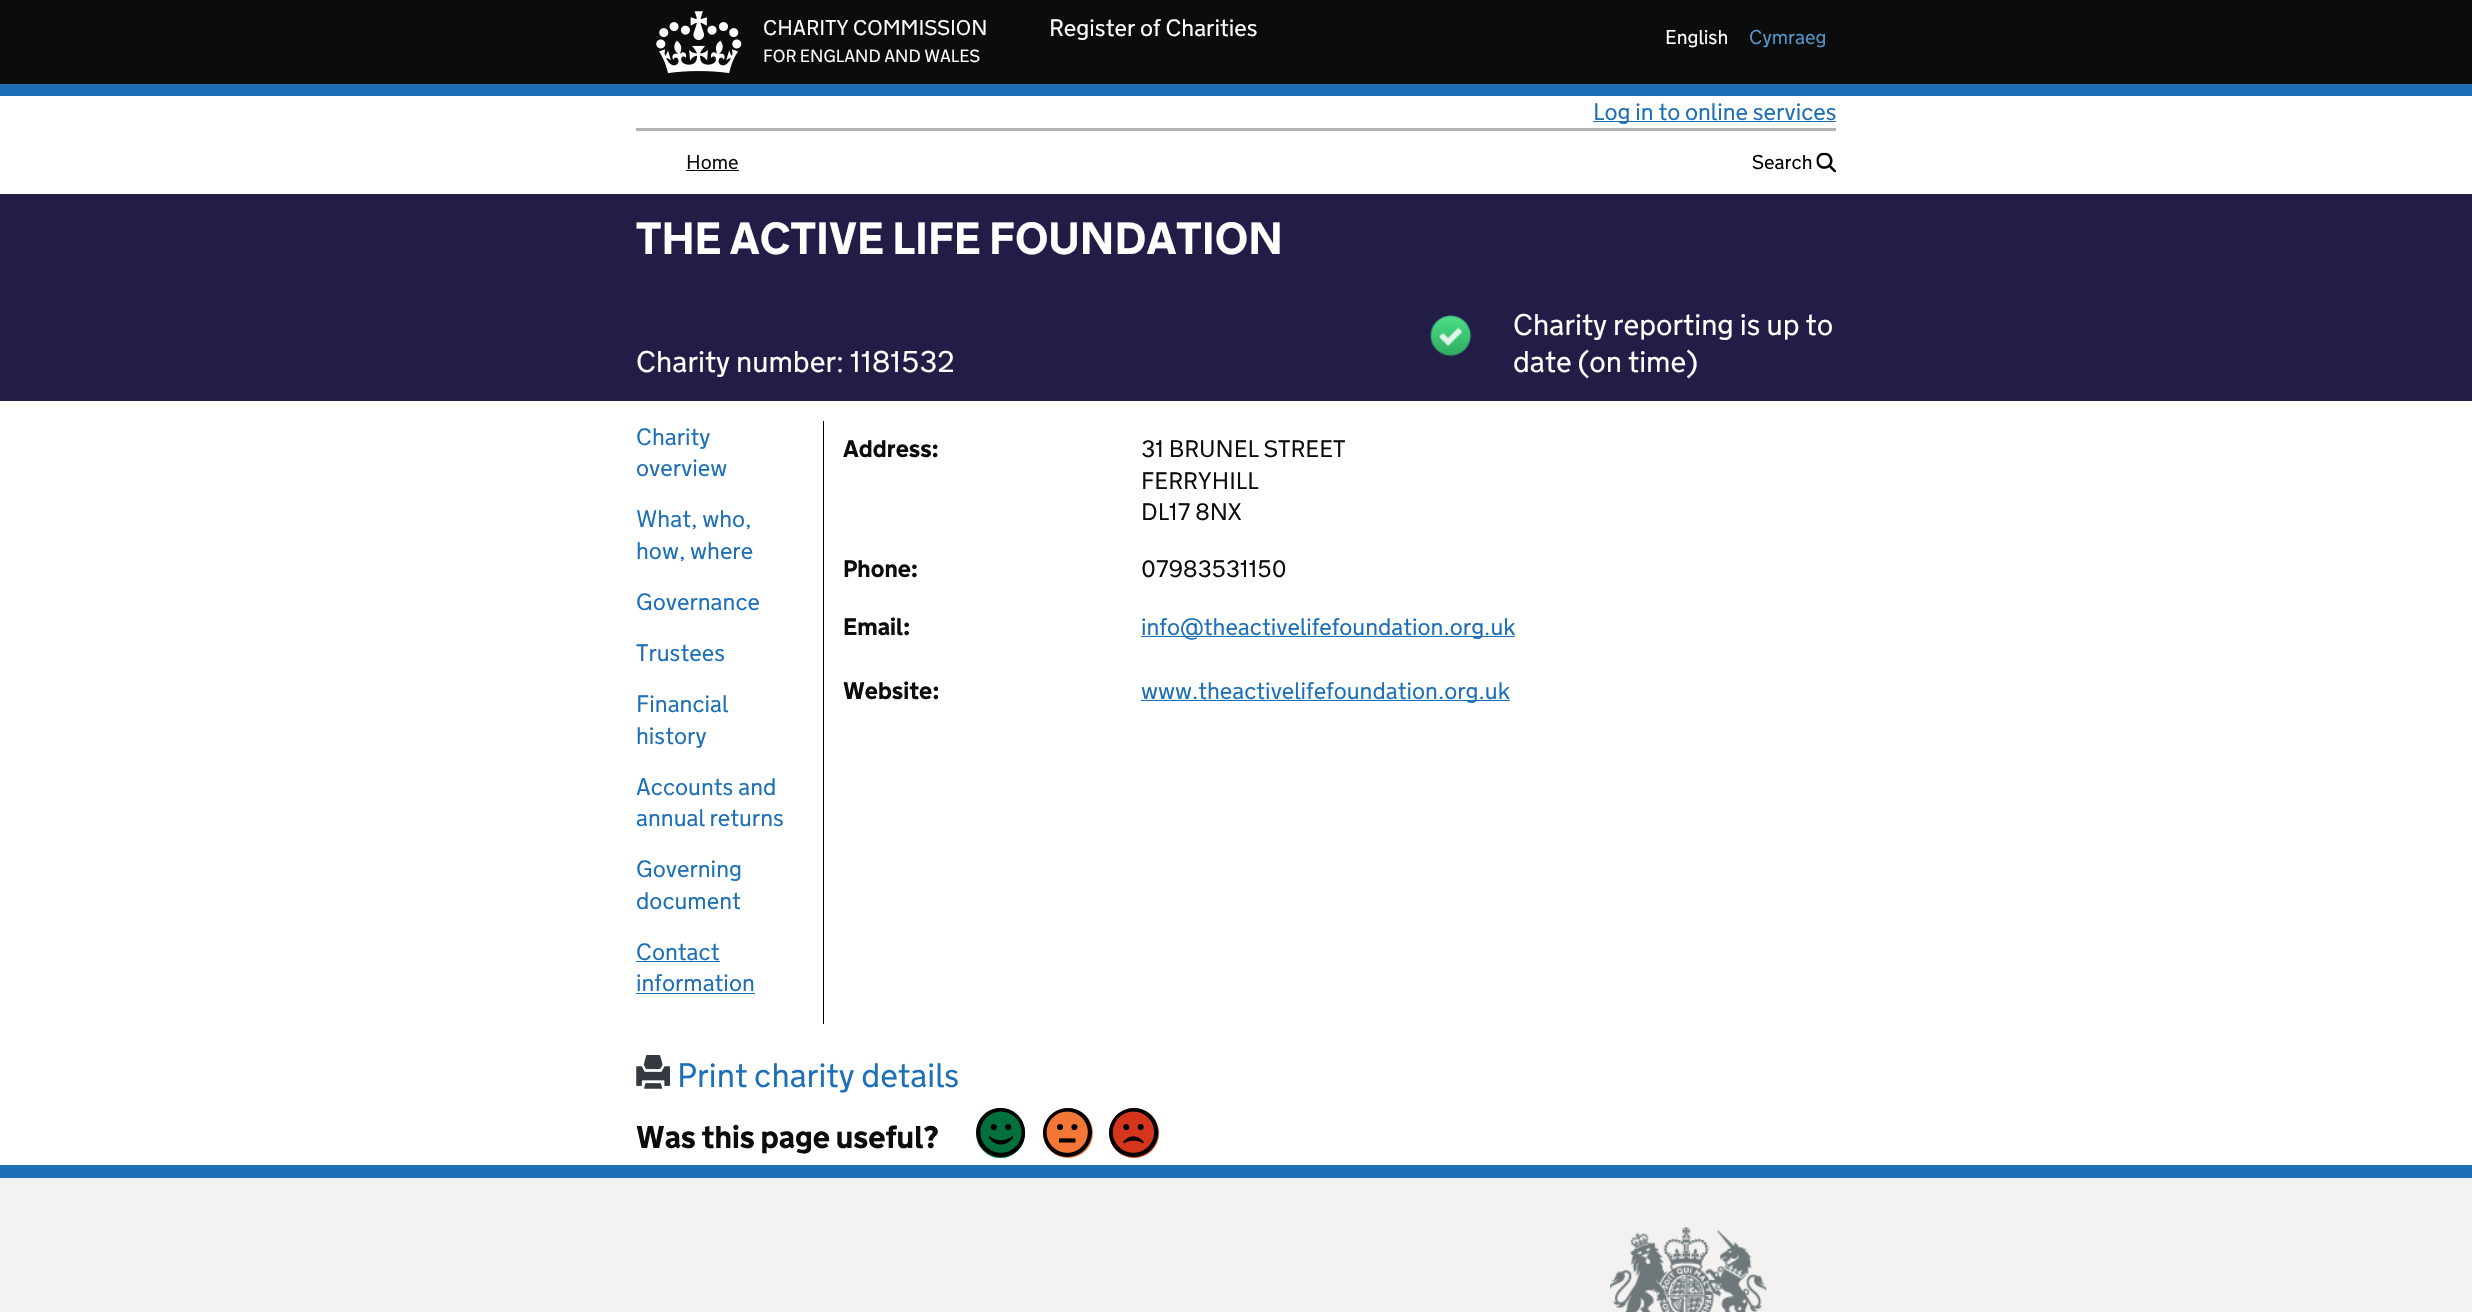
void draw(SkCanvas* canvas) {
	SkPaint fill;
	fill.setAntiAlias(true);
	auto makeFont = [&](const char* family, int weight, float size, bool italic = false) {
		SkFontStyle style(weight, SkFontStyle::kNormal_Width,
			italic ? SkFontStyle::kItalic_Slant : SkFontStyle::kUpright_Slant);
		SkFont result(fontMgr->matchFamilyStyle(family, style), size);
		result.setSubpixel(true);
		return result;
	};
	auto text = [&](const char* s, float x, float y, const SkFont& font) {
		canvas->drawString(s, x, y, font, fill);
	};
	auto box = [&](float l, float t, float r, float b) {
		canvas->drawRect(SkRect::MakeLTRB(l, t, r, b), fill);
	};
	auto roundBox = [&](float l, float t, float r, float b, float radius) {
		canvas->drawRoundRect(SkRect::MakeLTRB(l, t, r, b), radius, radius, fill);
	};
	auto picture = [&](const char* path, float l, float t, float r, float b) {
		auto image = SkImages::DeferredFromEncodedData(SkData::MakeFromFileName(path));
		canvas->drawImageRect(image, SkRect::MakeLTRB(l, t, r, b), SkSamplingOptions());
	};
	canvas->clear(0xFFFFFFFF);
	fill.setColor(0xFF0B0C0C);
	box(0, 0, 2472, 84);
	fill.setColor(0xFF1D70B8);
	box(0, 84, 2472, 96);
	picture("image0.png", 656, 11, 742, 74);
	fill.setColor(0xFFB1B4B6);
	box(636, 128, 1836, 131);
	fill.setColor(0xFF1D70B8);
	box(1593, 121, 1836, 122);
	fill.setColor(0xFF0B0C0C);
	box(686, 170, 739, 171);
	picture("image1.png", 1816, 152, 1836, 173);
	fill.setColor(0xFF211D47);
	box(0, 194, 2472, 401);
	picture("image2.png", 1430, 314, 1472, 357);
	fill.setColor(0xFF000000);
	box(823, 421, 824, 1024);
	fill.setColor(0xFF1D70B8);
	box(636, 961, 720, 962);
	box(636, 993, 755, 994);
	box(1141, 636, 1515, 637);
	box(1141, 700, 1510, 701);
	picture("image3.png", 636, 1055, 670, 1089);
	fill.setColor(0xFF00703C);
	roundBox(976, 1108, 1025, 1158, 24.5f);
	picture("image4.png", 976, 1108, 1025, 1157);
	fill.setColor(0xFFF47738);
	canvas->drawCircle(1068, 1133, 25, fill);
	picture("image5.png", 1043, 1108, 1092, 1157);
	fill.setColor(0xFFD4351C);
	canvas->drawCircle(1134, 1133, 25, fill);
	picture("image6.png", 1109, 1108, 1159, 1157);
	fill.setColor(0xFFF3F2F1);
	box(0, 1178, 2472, 1312);
	fill.setColor(0xFF1D70B8);
	box(0, 1165, 2472, 1178);
	picture("image7.png", 1610, 1227, 1767, 1312);
	auto font1 = makeFont("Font", 300, 21.25f);
	fill.setColor(0xFFFFFFFF);
	text("CHARITY COMMISSION", 763, 35, font1);
	auto font2 = makeFont("Font", 300, 17.5f);
	text("FOR ENGLAND AND WALES", 763, 62, font2);
	auto font3 = makeFont("Font", 300, 23.75f);
	text("Register of Charities", 1049, 36, font3);
	auto font4 = makeFont("Font", 300, 20);
	text("English", 1665, 44, font4);
	fill.setColor(0xFF5694CA);
	text("Cymraeg", 1749, 44, font4);
	fill.setColor(0xFF1D70B8);
	text("Log in to online services", 1593, 120, font3);
	fill.setColor(0xFF0B0C0C);
	text("Home", 686, 169, font4);
	fill.setColor(0xFF000000);
	text("Search", 1752, 169, font4);
	auto font5 = makeFont("Font", 700, 45);
	fill.setColor(0xFFFFFFFF);
	text("THE ACTIVE LIFE FOUNDATION", 636, 254, font5);
	auto font6 = makeFont("Font", 300, 30);
	text("Charity number: 1181532", 636, 372, font6);
	text("Charity reporting is up to", 1513, 335, font6);
	text("date (on time)", 1513, 372, font6);
	fill.setColor(0xFF1D70B8);
	text("Charity", 636, 445, font3);
	text("overview", 636, 476, font3);
	text("What, who,", 636, 527, font3);
	text("how, where", 636, 559, font3);
	text("Governance", 636, 610, font3);
	text("Trustees", 636, 661, font3);
	text("Financial", 636, 712, font3);
	text("history", 636, 744, font3);
	text("Accounts and", 636, 795, font3);
	text("annual returns", 636, 826, font3);
	text("Governing", 636, 877, font3);
	text("document", 636, 909, font3);
	text("Contact", 636, 960, font3);
	text("information", 636, 991, font3);
	auto font7 = makeFont("Font", 700, 23.75f);
	fill.setColor(0xFF0B0C0C);
	text("Address:", 843, 457, font7);
	text("31 BRUNEL STREET", 1141, 457, font3);
	text("FERRYHILL", 1141, 489, font3);
	text("DL17 8NX", 1141, 520, font3);
	text("Phone:", 843, 577, font7);
	text("07983531150", 1141, 577, font3);
	text("Email:", 843, 635, font7);
	fill.setColor(0xFF1D70B8);
	text("info@theactivelifefoundation.org.uk", 1141, 635, font3);
	fill.setColor(0xFF0B0C0C);
	text("Website:", 843, 699, font7);
	fill.setColor(0xFF1D70B8);
	text("www.theactivelifefoundation.org.uk", 1141, 699, font3);
	auto font8 = makeFont("Font", 300, 33.75f);
	text("Print charity details", 677, 1087, font8);
	auto font9 = makeFont("Font", 700, 31.25f);
	fill.setColor(0xFF0B0C0C);
	text("Was this page useful?", 636, 1148, font9);
}
